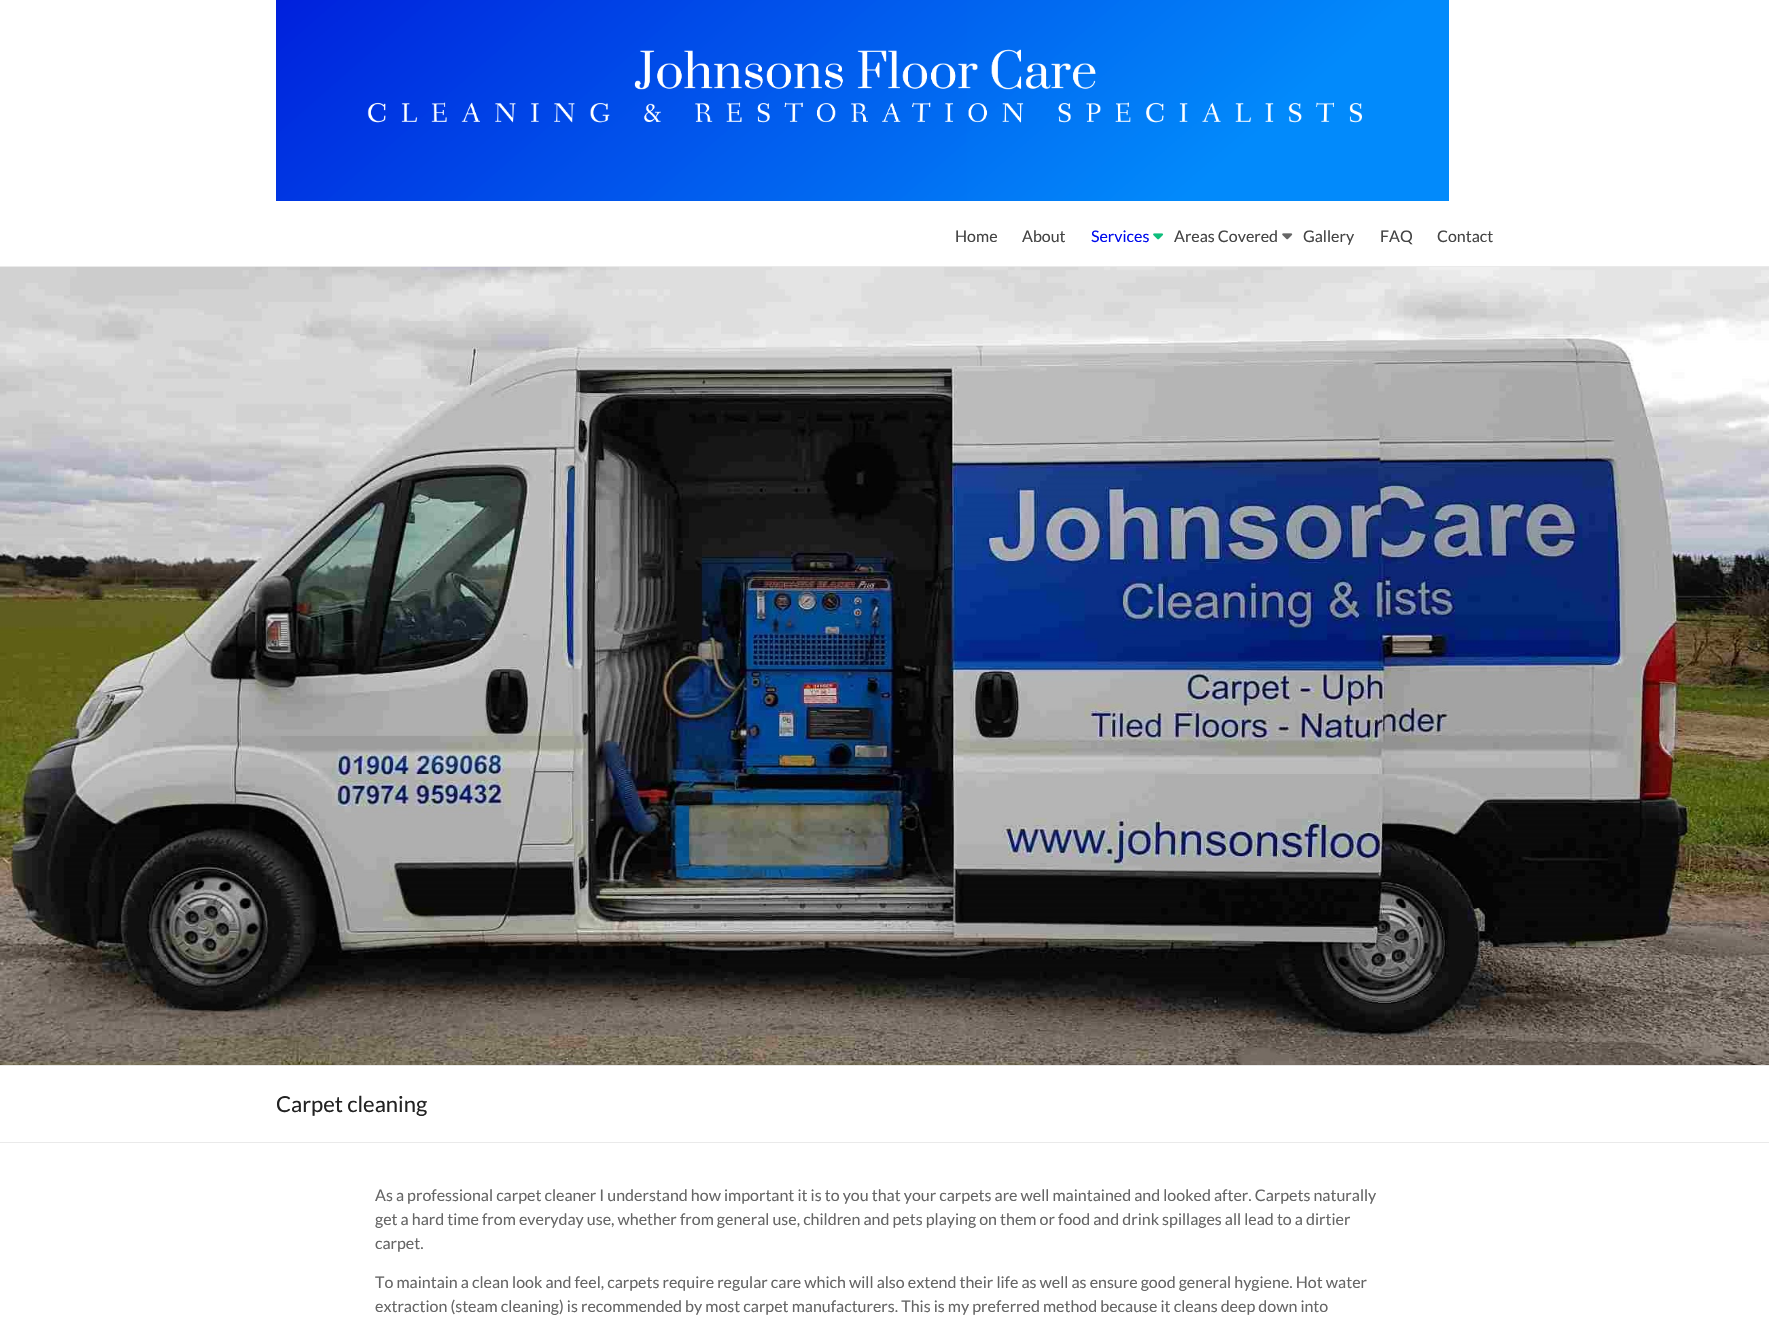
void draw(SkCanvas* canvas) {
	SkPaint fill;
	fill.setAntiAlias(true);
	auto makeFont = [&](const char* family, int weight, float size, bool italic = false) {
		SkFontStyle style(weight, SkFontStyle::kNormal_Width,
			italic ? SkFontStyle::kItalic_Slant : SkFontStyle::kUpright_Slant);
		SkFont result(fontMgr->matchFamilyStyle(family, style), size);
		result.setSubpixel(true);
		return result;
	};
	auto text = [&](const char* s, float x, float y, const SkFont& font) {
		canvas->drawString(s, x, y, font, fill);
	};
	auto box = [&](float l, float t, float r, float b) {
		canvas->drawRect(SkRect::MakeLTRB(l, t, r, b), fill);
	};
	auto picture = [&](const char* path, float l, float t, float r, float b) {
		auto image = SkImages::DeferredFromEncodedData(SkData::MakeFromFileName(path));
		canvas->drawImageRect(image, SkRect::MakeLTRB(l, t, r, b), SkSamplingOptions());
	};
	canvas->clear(0xFFFFFFFF);
	fill.setColor(0xFFEAEAEA);
	box(0, 266, 1769, 267);
	picture("image0.png", 276, 0, 1449, 201);
	picture("image1.png", 1153, 233, 1164, 240);
	picture("image2.png", 1282, 233, 1293, 240);
	picture("image3.png", 0, 267, 1769, 1065);
	box(0, 1065, 1769, 1066);
	box(0, 1142, 1769, 1143);
	auto font1 = makeFont("Lato", 400, 16);
	fill.setColor(0xFF444444);
	text("Home", 955, 242, font1);
	text("About", 1022, 242, font1);
	fill.setColor(0xFF000BED);
	text("Services", 1091, 242, font1);
	fill.setColor(0xFF444444);
	text("Areas Covered", 1174, 242, font1);
	text("Gallery", 1303, 242, font1);
	text("FAQ", 1380, 242, font1);
	text("Contact", 1437, 242, font1);
	auto font2 = makeFont("Lato", 400, 22);
	fill.setColor(0xFF222222);
	text("Carpet cleaning", 276, 1112, font2);
	fill.setColor(0xFF666666);
	text("As a professional carpet cleaner I understand how important it is to you that your carpets are well maintained and looked after. Carpets naturally", 375, 1201, font1);
	text("get a hard time from everyday use, whether from general use, children and pets playing on them or food and drink spillages all lead to a dirtier", 375, 1225, font1);
	text("carpet.", 375, 1249, font1);
	text("To maintain a clean look and feel, carpets require regular care which will also extend their life as well as ensure good general hygiene. Hot water", 375, 1288, font1);
	text("extraction (steam cleaning) is recommended by most carpet manufacturers. This is my preferred method because it cleans deep down into", 375, 1312, font1);
}
